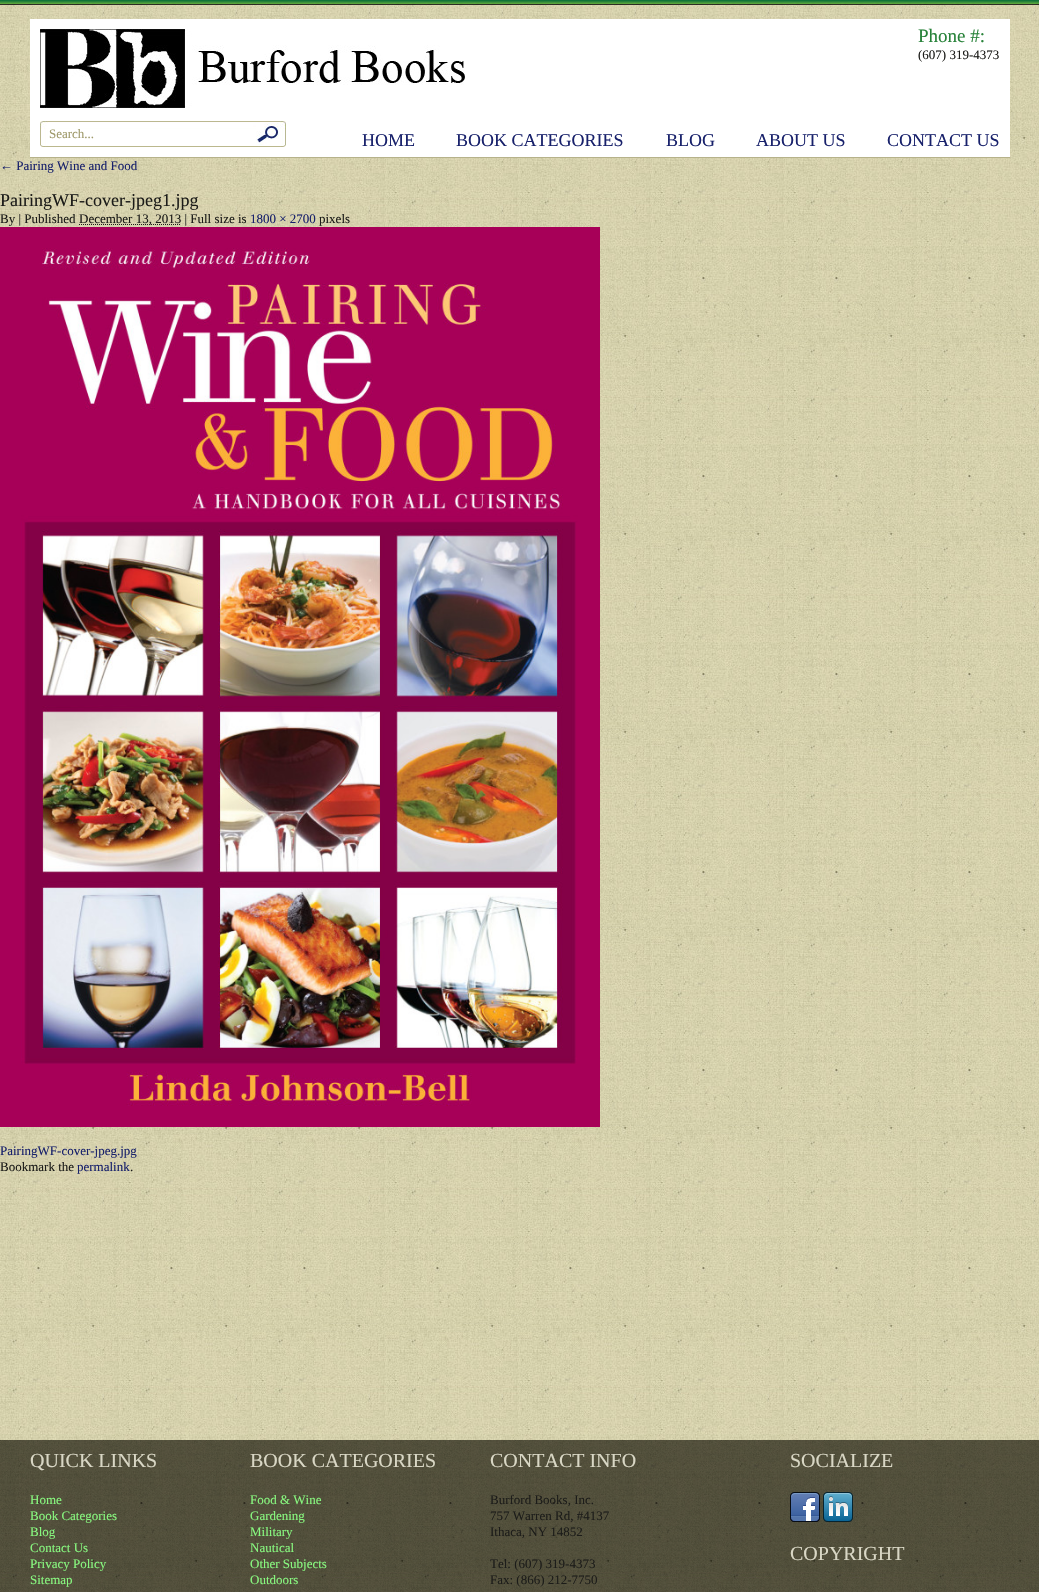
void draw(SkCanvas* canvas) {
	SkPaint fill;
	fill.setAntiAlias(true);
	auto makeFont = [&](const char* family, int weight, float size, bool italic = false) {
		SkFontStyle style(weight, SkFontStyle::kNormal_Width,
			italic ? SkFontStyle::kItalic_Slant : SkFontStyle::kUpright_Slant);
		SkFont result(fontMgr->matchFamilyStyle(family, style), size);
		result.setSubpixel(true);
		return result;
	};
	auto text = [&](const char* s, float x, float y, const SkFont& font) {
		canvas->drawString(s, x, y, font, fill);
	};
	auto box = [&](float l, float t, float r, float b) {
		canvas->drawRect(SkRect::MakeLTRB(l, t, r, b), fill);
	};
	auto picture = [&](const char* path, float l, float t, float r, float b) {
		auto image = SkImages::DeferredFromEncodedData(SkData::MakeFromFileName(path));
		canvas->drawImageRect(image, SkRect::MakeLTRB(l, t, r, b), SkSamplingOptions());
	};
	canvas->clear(0xFFFFFFFF);
	picture("image0.png", 0, 5, 1039, 1592);
	picture("image1.png", 0, 0, 1039, 5);
	fill.setColor(0xFFFFFFFF);
	box(30, 19, 1010, 157);
	fill.setColor(0xFFB6B28A);
	box(30, 157, 1010, 158);
	picture("image2.png", 40, 29, 465, 108);
	picture("image3.png", 40, 121, 286, 147);
	fill.setColor(0xFFFFFFFF);
	box(47, 123, 253, 128);
	picture("image4.png", 256, 123, 279, 145);
	fill.setStyle(SkPaint::kStroke_Style);
	fill.setStrokeWidth(1);
	fill.setColor(0xFF1C1C19);
	fill.setPathEffect(SkDashPathEffect::Make({{1, 1}}, 0));
	canvas->drawPath(SkPathBuilder().moveTo(79, 224.5f).lineTo(181, 224.5f).detach(), fill);
	fill.setPathEffect(nullptr);
	picture("image5.png", 0, 227, 600, 1127);
	picture("image6.png", 0, 1440, 1039, 1592);
	picture("image7.png", 790, 1492, 820, 1522);
	picture("image8.png", 823, 1492, 853, 1522);
	auto font1 = makeFont("Liberation Serif", 400, 19);
	fill.setStyle(SkPaint::kFill_Style);
	fill.setColor(0xFF278239);
	text("Phone #:", 918, 42, font1);
	auto font2 = makeFont("Liberation Serif", 400, 13);
	fill.setColor(0xFF1C1C19);
	text("(607) 319-4373", 918, 59, font2);
	fill.setColor(0xFF9F9A6B);
	text("Search...", 49, 138, font2);
	auto font3 = makeFont("Liberation Serif", 400, 18);
	fill.setColor(0xFF18216B);
	text("HOME", 362, 146, font3);
	text("BOOK CATEGORIES", 456, 146, font3);
	text("BLOG", 666, 146, font3);
	text("ABOUT US", 756, 146, font3);
	text("CONTACT US", 887, 146, font3);
	text("← Pairing Wine and Food", 0, 170, font2);
	fill.setColor(0xFF1C1C19);
	text("PairingWF-cover-jpeg1.jpg", 0, 206, font3);
	text("By | Published", 0, 223, font2);
	text("December 13, 2013 | Full size is", 79, 223, font2);
	fill.setColor(0xFF18216B);
	text("1800 × 2700", 250, 223, font2);
	fill.setColor(0xFF1C1C19);
	text("pixels", 319, 223, font2);
	fill.setColor(0xFF18216B);
	text("PairingWF-cover-jpeg.jpg", 0, 1155, font2);
	fill.setColor(0xFF1C1C19);
	text("Bookmark the", 0, 1171, font2);
	fill.setColor(0xFF18216B);
	text("permalink", 77, 1171, font2);
	fill.setColor(0xFF1C1C19);
	text(".", 130, 1171, font2);
	auto font4 = makeFont("Liberation Serif", 400, 20);
	fill.setColor(0xFFD9D7C5);
	text("QUICK LINKS", 30, 1467, font4);
	fill.setColor(0xFF88F87F);
	text("Home", 30, 1504, font2);
	text("Book Categories", 30, 1520, font2);
	text("Blog", 30, 1536, font2);
	text("Contact Us", 30, 1552, font2);
	text("Privacy Policy", 30, 1568, font2);
	text("Sitemap", 30, 1584, font2);
	fill.setColor(0xFFD9D7C5);
	text("BOOK CATEGORIES", 250, 1467, font4);
	fill.setColor(0xFF88F87F);
	text("Food & Wine", 250, 1504, font2);
	text("Gardening", 250, 1520, font2);
	text("Military", 250, 1536, font2);
	text("Nautical", 250, 1552, font2);
	text("Other Subjects", 250, 1568, font2);
	text("Outdoors", 250, 1584, font2);
	fill.setColor(0xFFD9D7C5);
	text("CONTACT INFO", 490, 1467, font4);
	fill.setColor(0xFF1C1C19);
	text("Burford Books, Inc.", 490, 1504, font2);
	text("757 Warren Rd, #4137", 490, 1520, font2);
	text("Ithaca, NY 14852", 490, 1536, font2);
	text("Tel: (607) 319-4373", 490, 1568, font2);
	text("Fax: (866) 212-7750", 490, 1584, font2);
	fill.setColor(0xFFD9D7C5);
	text("SOCIALIZE", 790, 1467, font4);
	text("COPYRIGHT", 790, 1560, font4);
}
